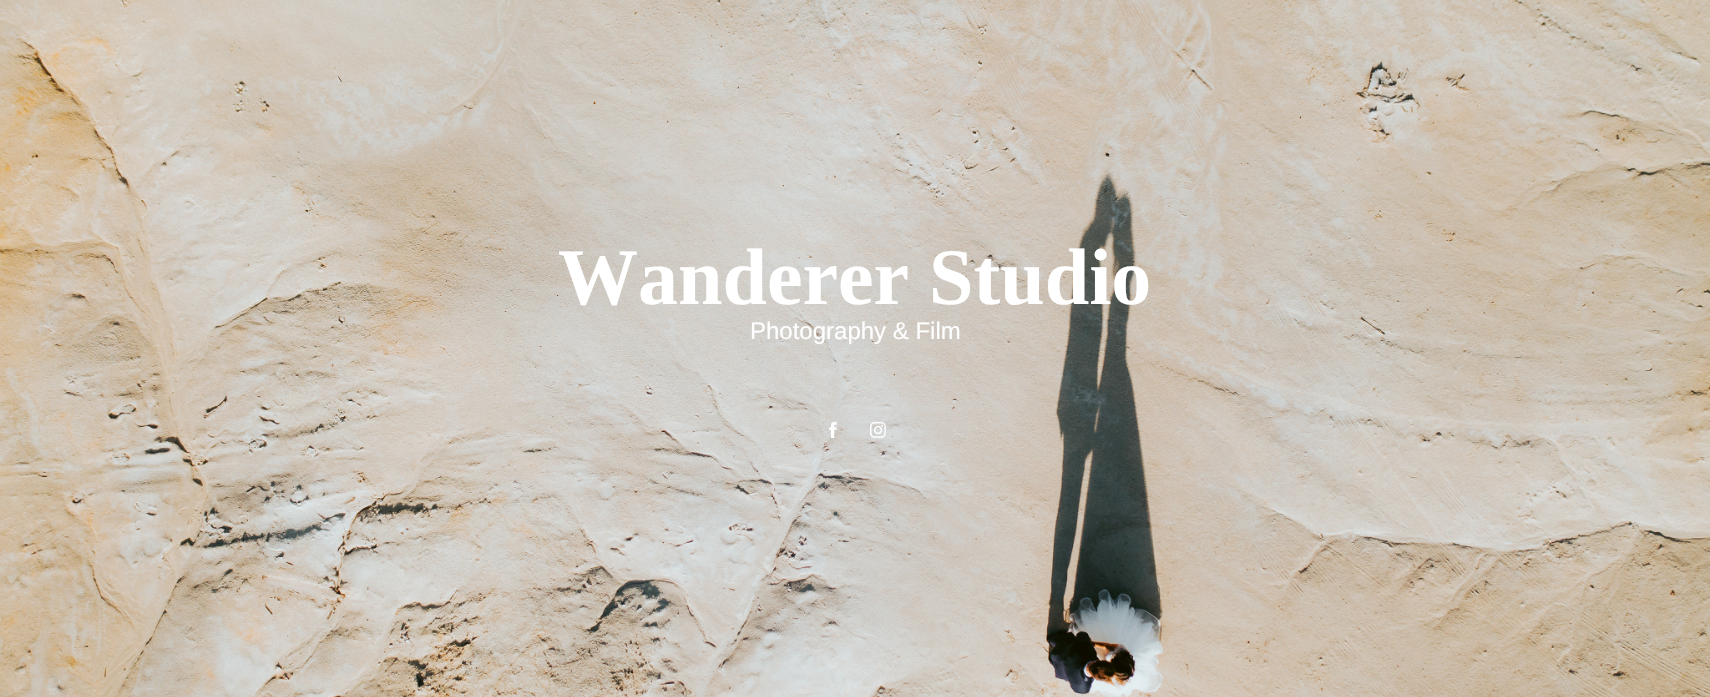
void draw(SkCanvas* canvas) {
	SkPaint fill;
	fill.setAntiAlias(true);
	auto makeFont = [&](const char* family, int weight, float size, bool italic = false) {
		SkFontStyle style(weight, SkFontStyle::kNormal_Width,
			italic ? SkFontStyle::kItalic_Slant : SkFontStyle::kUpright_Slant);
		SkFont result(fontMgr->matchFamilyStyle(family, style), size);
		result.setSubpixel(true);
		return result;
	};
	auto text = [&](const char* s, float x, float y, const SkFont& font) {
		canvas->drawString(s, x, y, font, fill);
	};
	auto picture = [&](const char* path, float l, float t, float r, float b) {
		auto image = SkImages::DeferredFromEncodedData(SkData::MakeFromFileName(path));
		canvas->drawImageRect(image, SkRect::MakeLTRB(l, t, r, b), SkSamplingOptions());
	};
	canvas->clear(0xFFFFFFFF);
	picture("image0.png", 0, 0, 1710, 697);
	picture("image1.png", 829, 422, 837, 438);
	picture("image2.png", 870, 422, 886, 438);
	auto font1 = makeFont("Liberation Serif", 700, 80);
	fill.setColor(0xFFFFFFFF);
	text("Wanderer Studio", 558, 304, font1);
	auto font2 = makeFont("Liberation Sans", 400, 24);
	text("Photography & Film", 750, 339, font2);
}
